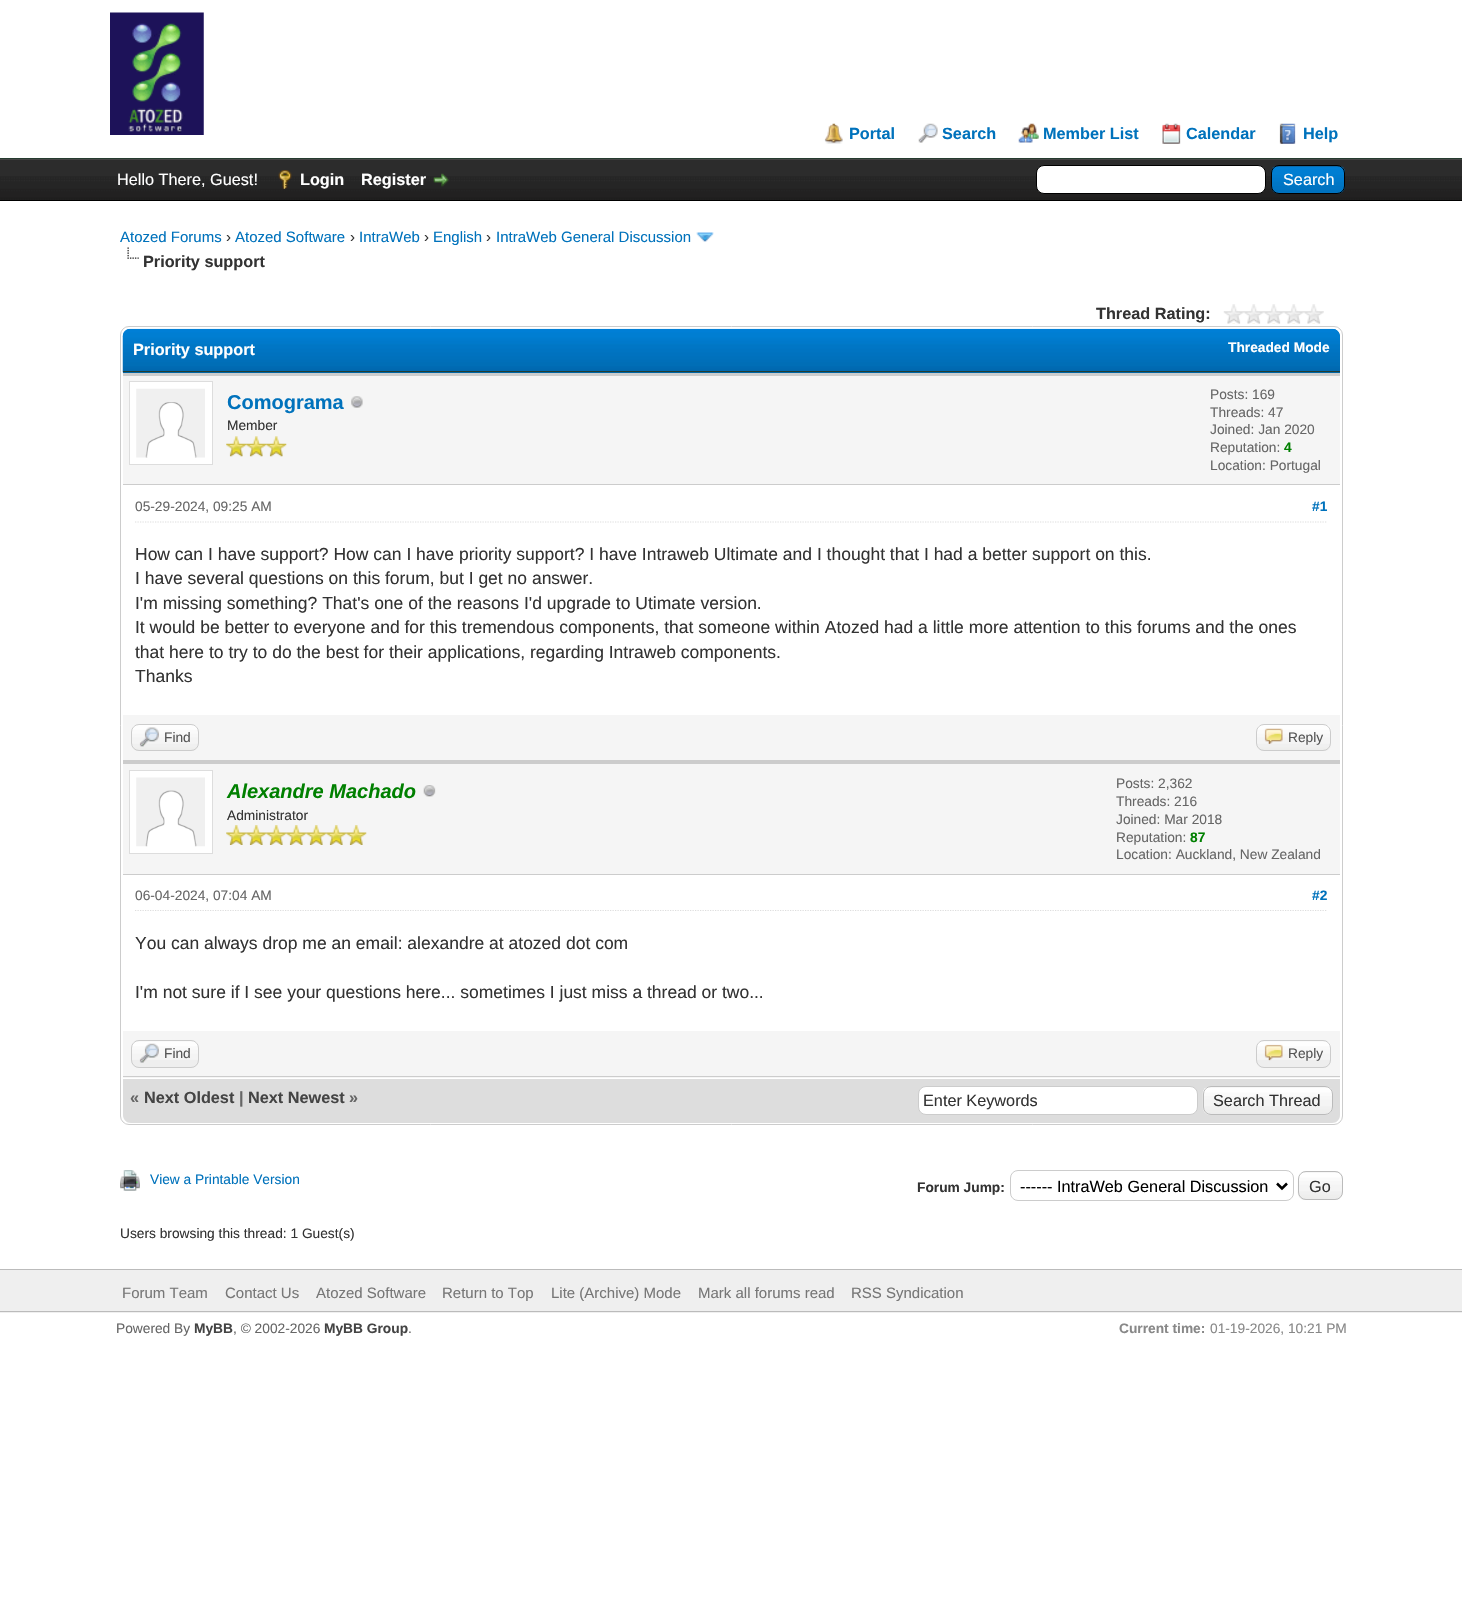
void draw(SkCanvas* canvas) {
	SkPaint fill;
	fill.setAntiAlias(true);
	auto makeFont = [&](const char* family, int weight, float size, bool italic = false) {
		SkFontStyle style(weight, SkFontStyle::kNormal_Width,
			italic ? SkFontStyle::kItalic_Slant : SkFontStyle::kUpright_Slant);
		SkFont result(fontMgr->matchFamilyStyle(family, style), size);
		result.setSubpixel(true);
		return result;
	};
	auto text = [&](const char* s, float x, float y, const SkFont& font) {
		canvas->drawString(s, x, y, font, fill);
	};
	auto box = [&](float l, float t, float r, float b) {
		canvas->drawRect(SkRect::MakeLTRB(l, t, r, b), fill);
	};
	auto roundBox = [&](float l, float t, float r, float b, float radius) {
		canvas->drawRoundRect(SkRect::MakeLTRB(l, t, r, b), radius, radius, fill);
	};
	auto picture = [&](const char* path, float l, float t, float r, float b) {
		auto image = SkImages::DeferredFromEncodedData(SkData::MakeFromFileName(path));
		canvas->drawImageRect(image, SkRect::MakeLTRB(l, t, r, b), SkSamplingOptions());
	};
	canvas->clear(0xFFFFFFFF);
	fill.setColor(0xFF263C30);
	box(0, 158, 1462, 159);
	picture("image0.png", 110, 12, 204, 135);
	picture("image1.png", 824, 123, 843, 144);
	picture("image2.png", 918, 123, 938, 143);
	picture("image3.png", 1018, 123, 1039, 143);
	picture("image4.png", 1162, 123, 1181, 144);
	picture("image5.png", 1279, 123, 1296, 144);
	picture("image6.png", 0, 160, 1462, 200);
	fill.setColor(0xFF444444);
	box(0, 159, 1462, 160);
	fill.setColor(0xFF000000);
	box(0, 200, 1462, 201);
	picture("image7.png", 278, 170, 292, 189);
	picture("image8.png", 433, 173, 449, 187);
	fill.setColor(0xFFFFFFFF);
	canvas->drawRoundRect(SkRect::MakeLTRB(1036.5f, 165.5f, 1265.5f, 193.5f), 7.5f, 7.5f, fill);
	fill.setStyle(SkPaint::kStroke_Style);
	fill.setStrokeWidth(1);
	fill.setColor(0xFF000000);
	canvas->drawRoundRect(SkRect::MakeLTRB(1036.5f, 165.5f, 1265.5f, 193.5f), 7.5f, 7.5f, fill);
	picture("image9.png", 1271, 166, 1345, 194);
	canvas->drawRoundRect(SkRect::MakeLTRB(1271.5f, 165.5f, 1344.5f, 193.5f), 7.5f, 7.5f, fill);
	picture("image10.png", 696, 232, 714, 242);
	picture("image11.png", 127, 247, 139, 259);
	picture("image12.png", 1223, 304, 1324, 324);
	fill.setColor(0xFFCCCCCC);
	canvas->drawRoundRect(SkRect::MakeLTRB(120.5f, 326.5f, 1342.5f, 1124.5f), 8.5f, 8.5f, fill);
	fill.setStyle(SkPaint::kFill_Style);
	fill.setColor(0xFF0066A2);
	canvas->drawPath(SkPathBuilder().moveTo(131, 329).lineTo(1332, 329).cubicTo(1336.5f, 329, 1340, 332.5f, 1340, 337).lineTo(1340, 373).lineTo(123, 373).lineTo(123, 337).cubicTo(123, 332.5f, 126.5f, 329, 131, 329).close().detach(), fill);
	picture("image13.png", 122, 328, 1340, 373);
	fill.setColor(0xFF263C30);
	box(123, 371, 1340, 372);
	fill.setColor(0xFFF5F5F5);
	box(123, 376, 1340, 484);
	fill.setColor(0xFFCCCCCC);
	box(123, 373, 1340, 376);
	box(123, 484, 1340, 485);
	fill.setColor(0xFFFFFFFF);
	canvas->drawRect(SkRect::MakeLTRB(129.5f, 381.5f, 212.5f, 464.5f), fill);
	fill.setStyle(SkPaint::kStroke_Style);
	fill.setColor(0xFFDDDDDD);
	canvas->drawRect(SkRect::MakeLTRB(129.5f, 381.5f, 212.5f, 464.5f), fill);
	picture("image14.png", 136, 388, 205, 458);
	picture("image15.png", 351, 396, 363, 408);
	picture("image16.png", 226, 436, 247, 457);
	picture("image17.png", 246, 436, 267, 457);
	picture("image17.png", 266, 436, 287, 457);
	fill.setStrokeWidth(1.2f);
	fill.setPathEffect(SkDashPathEffect::Make({{1.25f, 1.25f}}, 0));
	canvas->drawPath(SkPathBuilder().moveTo(135, 522).lineTo(1327.5f, 522).detach(), fill);
	fill.setPathEffect(nullptr);
	fill.setStyle(SkPaint::kFill_Style);
	fill.setColor(0xFFF5F5F5);
	box(123, 715, 1340, 760);
	fill.setColor(0xFFCCCCCC);
	box(123, 760, 1340, 764);
	picture("image18.png", 131, 725, 199, 751);
	fill.setStyle(SkPaint::kStroke_Style);
	fill.setStrokeWidth(1);
	canvas->drawRoundRect(SkRect::MakeLTRB(131.5f, 724.5f, 198.5f, 750.5f), 7.5f, 7.5f, fill);
	picture("image19.png", 139, 727, 159, 747);
	picture("image20.png", 1256, 725, 1331, 751);
	canvas->drawRoundRect(SkRect::MakeLTRB(1256.5f, 724.5f, 1330.5f, 750.5f), 7.5f, 7.5f, fill);
	picture("image21.png", 1264, 728, 1283, 744);
	fill.setStyle(SkPaint::kFill_Style);
	fill.setColor(0xFFF5F5F5);
	box(123, 764, 1340, 874);
	fill.setColor(0xFFCCCCCC);
	box(123, 874, 1340, 875);
	fill.setColor(0xFFFFFFFF);
	canvas->drawRect(SkRect::MakeLTRB(129.5f, 770.5f, 212.5f, 853.5f), fill);
	fill.setStyle(SkPaint::kStroke_Style);
	fill.setColor(0xFFDDDDDD);
	canvas->drawRect(SkRect::MakeLTRB(129.5f, 770.5f, 212.5f, 853.5f), fill);
	picture("image22.png", 136, 777, 205, 847);
	picture("image23.png", 423, 785, 436, 797);
	picture("image24.png", 226, 825, 247, 845);
	picture("image25.png", 246, 825, 267, 845);
	picture("image25.png", 266, 825, 287, 845);
	picture("image25.png", 286, 825, 307, 845);
	picture("image25.png", 306, 825, 327, 845);
	picture("image25.png", 326, 825, 347, 845);
	picture("image25.png", 346, 825, 367, 845);
	fill.setStrokeWidth(1.2f);
	fill.setPathEffect(SkDashPathEffect::Make({{1.25f, 1.25f}}, 0));
	canvas->drawPath(SkPathBuilder().moveTo(135, 910.5f).lineTo(1327.5f, 910.5f).detach(), fill);
	fill.setPathEffect(nullptr);
	fill.setStyle(SkPaint::kFill_Style);
	fill.setColor(0xFFF5F5F5);
	box(123, 1031, 1340, 1078);
	fill.setColor(0xFFCCCCCC);
	box(123, 1076, 1340, 1077);
	fill.setColor(0xFFEEEEEE);
	roundBox(131, 1040, 199, 1068, 8);
	picture("image26.png", 131, 1041, 199, 1060);
	fill.setStyle(SkPaint::kStroke_Style);
	fill.setStrokeWidth(1);
	fill.setColor(0xFFCCCCCC);
	canvas->drawRoundRect(SkRect::MakeLTRB(131.5f, 1040.5f, 198.5f, 1067.5f), 7.5f, 7.5f, fill);
	picture("image27.png", 139, 1043, 159, 1063);
	fill.setStyle(SkPaint::kFill_Style);
	fill.setColor(0xFFEEEEEE);
	roundBox(1256, 1040, 1331, 1068, 8);
	picture("image28.png", 1256, 1041, 1331, 1060);
	fill.setStyle(SkPaint::kStroke_Style);
	fill.setColor(0xFFCCCCCC);
	canvas->drawRoundRect(SkRect::MakeLTRB(1256.5f, 1040.5f, 1330.5f, 1067.5f), 7.5f, 7.5f, fill);
	picture("image29.png", 1264, 1044, 1283, 1061);
	fill.setStyle(SkPaint::kFill_Style);
	fill.setColor(0xFFDDDDDD);
	canvas->drawPath(SkPathBuilder().moveTo(123, 1078).lineTo(1340, 1078).lineTo(1340, 1115).cubicTo(1340, 1119.5f, 1336.5f, 1123, 1332, 1123).lineTo(131, 1123).cubicTo(126.5f, 1123, 123, 1119.5f, 123, 1115).close().detach(), fill);
	fill.setColor(0xFFFFFFFF);
	box(123, 1078, 1340, 1079);
	canvas->drawRoundRect(SkRect::MakeLTRB(918.5f, 1086.5f, 1197.5f, 1114.5f), 7.5f, 7.5f, fill);
	fill.setStyle(SkPaint::kStroke_Style);
	fill.setColor(0xFFCCCCCC);
	canvas->drawRoundRect(SkRect::MakeLTRB(918.5f, 1086.5f, 1197.5f, 1114.5f), 7.5f, 7.5f, fill);
	fill.setStyle(SkPaint::kFill_Style);
	fill.setColor(0xFFEEEEEE);
	roundBox(1203, 1086, 1333, 1115, 8);
	picture("image30.png", 1202, 1087, 1332, 1115);
	fill.setStyle(SkPaint::kStroke_Style);
	fill.setColor(0xFFBBBBBB);
	canvas->drawRoundRect(SkRect::MakeLTRB(1203.5f, 1086.5f, 1332.5f, 1114.5f), 7.5f, 7.5f, fill);
	picture("image31.png", 120, 1170, 140, 1191);
	fill.setColor(0xFFCCCCCC);
	canvas->drawRoundRect(SkRect::MakeLTRB(1010.5f, 1170.5f, 1293.5f, 1200.5f), 7.5f, 7.5f, fill);
	fill.setStrokeWidth(2.5f);
	fill.setColor(0xFF000000);
	canvas->drawPath(SkPathBuilder().moveTo(1277, 1183.5f).lineTo(1282, 1188.5f).lineTo(1287, 1183.5f).detach(), fill);
	fill.setStyle(SkPaint::kFill_Style);
	fill.setColor(0xFFEEEEEE);
	roundBox(1298, 1171, 1343, 1200, 8);
	picture("image32.png", 1297, 1172, 1342, 1200);
	fill.setStyle(SkPaint::kStroke_Style);
	fill.setStrokeWidth(1);
	fill.setColor(0xFFBBBBBB);
	canvas->drawRoundRect(SkRect::MakeLTRB(1298.5f, 1171.5f, 1342.5f, 1199.5f), 7.5f, 7.5f, fill);
	fill.setStyle(SkPaint::kFill_Style);
	fill.setColor(0xFFEFEFEF);
	box(0, 1270, 1462, 1313);
	fill.setColor(0xFFBBBBBB);
	box(0, 1269, 1462, 1270);
	box(0, 1311, 1462, 1312);
	auto font1 = makeFont("Liberation Sans", 700, 16.25f);
	fill.setColor(0xFF0072BC);
	text("Portal", 849, 139, font1);
	text("Search", 942, 139, font1);
	text("Member List", 1043, 139, font1);
	text("Calendar", 1186, 139, font1);
	text("Help", 1303, 139, font1);
	auto font2 = makeFont("Liberation Sans", 400, 16.25f);
	fill.setColor(0xFFFFFFFF);
	text("Hello There, Guest!", 117, 185, font2);
	text("Login", 300, 185, font1);
	text("Register", 361, 185, font1);
	text("Search", 1283, 185, font2);
	auto font3 = makeFont("Liberation Sans", 400, 15);
	fill.setColor(0xFF0072BC);
	text("Atozed Forums", 120, 242, font3);
	fill.setColor(0xFF333333);
	text("›", 226, 242, font3);
	fill.setColor(0xFF0072BC);
	text("Atozed Software", 235, 242, font3);
	fill.setColor(0xFF333333);
	text("›", 350, 242, font3);
	fill.setColor(0xFF0072BC);
	text("IntraWeb", 359, 242, font3);
	fill.setColor(0xFF333333);
	text("›", 424, 242, font3);
	fill.setColor(0xFF0072BC);
	text("English", 433, 242, font3);
	fill.setColor(0xFF333333);
	text("›", 486, 242, font3);
	fill.setColor(0xFF0072BC);
	text("IntraWeb General Discussion", 496, 242, font3);
	fill.setColor(0xFF333333);
	text("Priority support", 143, 267, font1);
	text("Thread Rating:", 1096, 319, font1);
	fill.setColor(0xFFFFFFFF);
	text("Priority support", 133, 355, font1);
	auto font4 = makeFont("Liberation Sans", 700, 13.75f);
	text("Threaded Mode", 1228, 352, font4);
	auto font5 = makeFont("Liberation Sans", 700, 20);
	fill.setColor(0xFF0072BC);
	text("Comograma", 227, 409, font5);
	auto font6 = makeFont("Liberation Sans", 400, 13.75f);
	fill.setColor(0xFF333333);
	text("Member", 227, 430, font6);
	fill.setColor(0xFF666666);
	text("Posts: 169", 1210, 399, font6);
	text("Threads: 47", 1210, 417, font6);
	text("Joined: Jan 2020", 1210, 434, font6);
	text("Reputation:", 1210, 452, font6);
	fill.setColor(0xFF008000);
	text("4", 1284, 452, font4);
	fill.setColor(0xFF666666);
	text("Location: Portugal", 1210, 470, font6);
	text("05-29-2024, 09:25 AM", 135, 511, font6);
	fill.setColor(0xFF0072BC);
	text("#1", 1312, 511, font4);
	auto font7 = makeFont("Liberation Sans", 400, 17.5f);
	fill.setColor(0xFF333333);
	text("How can I have support? How can I have priority support? I have Intraweb Ultimate and I thought that I had a better support on this.", 135, 560, font7);
	text("I have several questions on this forum, but I get no answer.", 135, 584, font7);
	text("I'm missing something? That's one of the reasons I'd upgrade to Utimate version.", 135, 609, font7);
	text("It would be better to everyone and for this tremendous components, that someone within Atozed had a little more attention to this forums and the ones", 135, 633, font7);
	text("that here to try to do the best for their applications, regarding Intraweb components.", 135, 658, font7);
	text("Thanks", 135, 682, font7);
	fill.setColor(0xFF555555);
	text("Find", 164, 742, font6);
	text("Reply", 1288, 742, font6);
	auto font8 = makeFont("Liberation Sans", 700, 20, true);
	fill.setColor(0xFF008000);
	text("Alexandre Machado", 227, 798, font8);
	fill.setColor(0xFF333333);
	text("Administrator", 227, 820, font6);
	fill.setColor(0xFF666666);
	text("Posts: 2,362", 1116, 788, font6);
	text("Threads: 216", 1116, 806, font6);
	text("Joined: Mar 2018", 1116, 824, font6);
	text("Reputation:", 1116, 842, font6);
	fill.setColor(0xFF008000);
	text("87", 1190, 842, font4);
	fill.setColor(0xFF666666);
	text("Location: Auckland, New Zealand", 1116, 859, font6);
	text("06-04-2024, 07:04 AM", 135, 900, font6);
	fill.setColor(0xFF0072BC);
	text("#2", 1312, 900, font4);
	fill.setColor(0xFF333333);
	text("You can always drop me an email: alexandre at atozed dot com", 135, 949, font7);
	text("I'm not sure if I see your questions here... sometimes I just miss a thread or two...", 135, 998, font7);
	fill.setColor(0xFF555555);
	text("Find", 164, 1058, font6);
	text("Reply", 1288, 1058, font6);
	fill.setColor(0xFF666666);
	text("«", 130, 1103, font1);
	fill.setColor(0xFF444444);
	text("Next Oldest", 144, 1103, font1);
	fill.setColor(0xFF666666);
	text("|", 239, 1103, font1);
	fill.setColor(0xFF444444);
	text("Next Newest", 248, 1103, font1);
	fill.setColor(0xFF666666);
	text("»", 349, 1103, font1);
	fill.setColor(0xFF333333);
	text("Enter Keywords", 923, 1106, font2);
	text("Search Thread", 1213, 1106, font2);
	fill.setColor(0xFF0072BC);
	text("View a Printable Version", 150, 1184, font6);
	fill.setColor(0xFF333333);
	text("Forum Jump:", 917, 1192, font4);
	fill.setColor(0xFF000000);
	text("------ IntraWeb General Discussion", 1020, 1192, font2);
	fill.setColor(0xFF333333);
	text("Go", 1309, 1192, font2);
	text("Users browsing this thread: 1 Guest(s)", 120, 1238, font6);
	fill.setColor(0xFF777777);
	text("Forum Team", 122, 1298, font3);
	text("Contact Us", 225, 1298, font3);
	text("Atozed Software", 316, 1298, font3);
	text("Return to Top", 442, 1298, font3);
	text("Lite (Archive) Mode", 551, 1298, font3);
	text("Mark all forums read", 698, 1298, font3);
	text("RSS Syndication", 851, 1298, font3);
	fill.setColor(0xFF666666);
	text("Powered By", 116, 1333, font6);
	fill.setColor(0xFF444444);
	text("MyBB", 194, 1333, font4);
	fill.setColor(0xFF666666);
	text(", © 2002-2026", 233, 1333, font6);
	fill.setColor(0xFF444444);
	text("MyBB Group", 324, 1333, font4);
	fill.setColor(0xFF666666);
	text(".", 408, 1333, font6);
	fill.setColor(0xFF888888);
	text("Current time:", 1119, 1333, font4);
	text("01-19-2026, 10:21 PM", 1210, 1333, font6);
}
